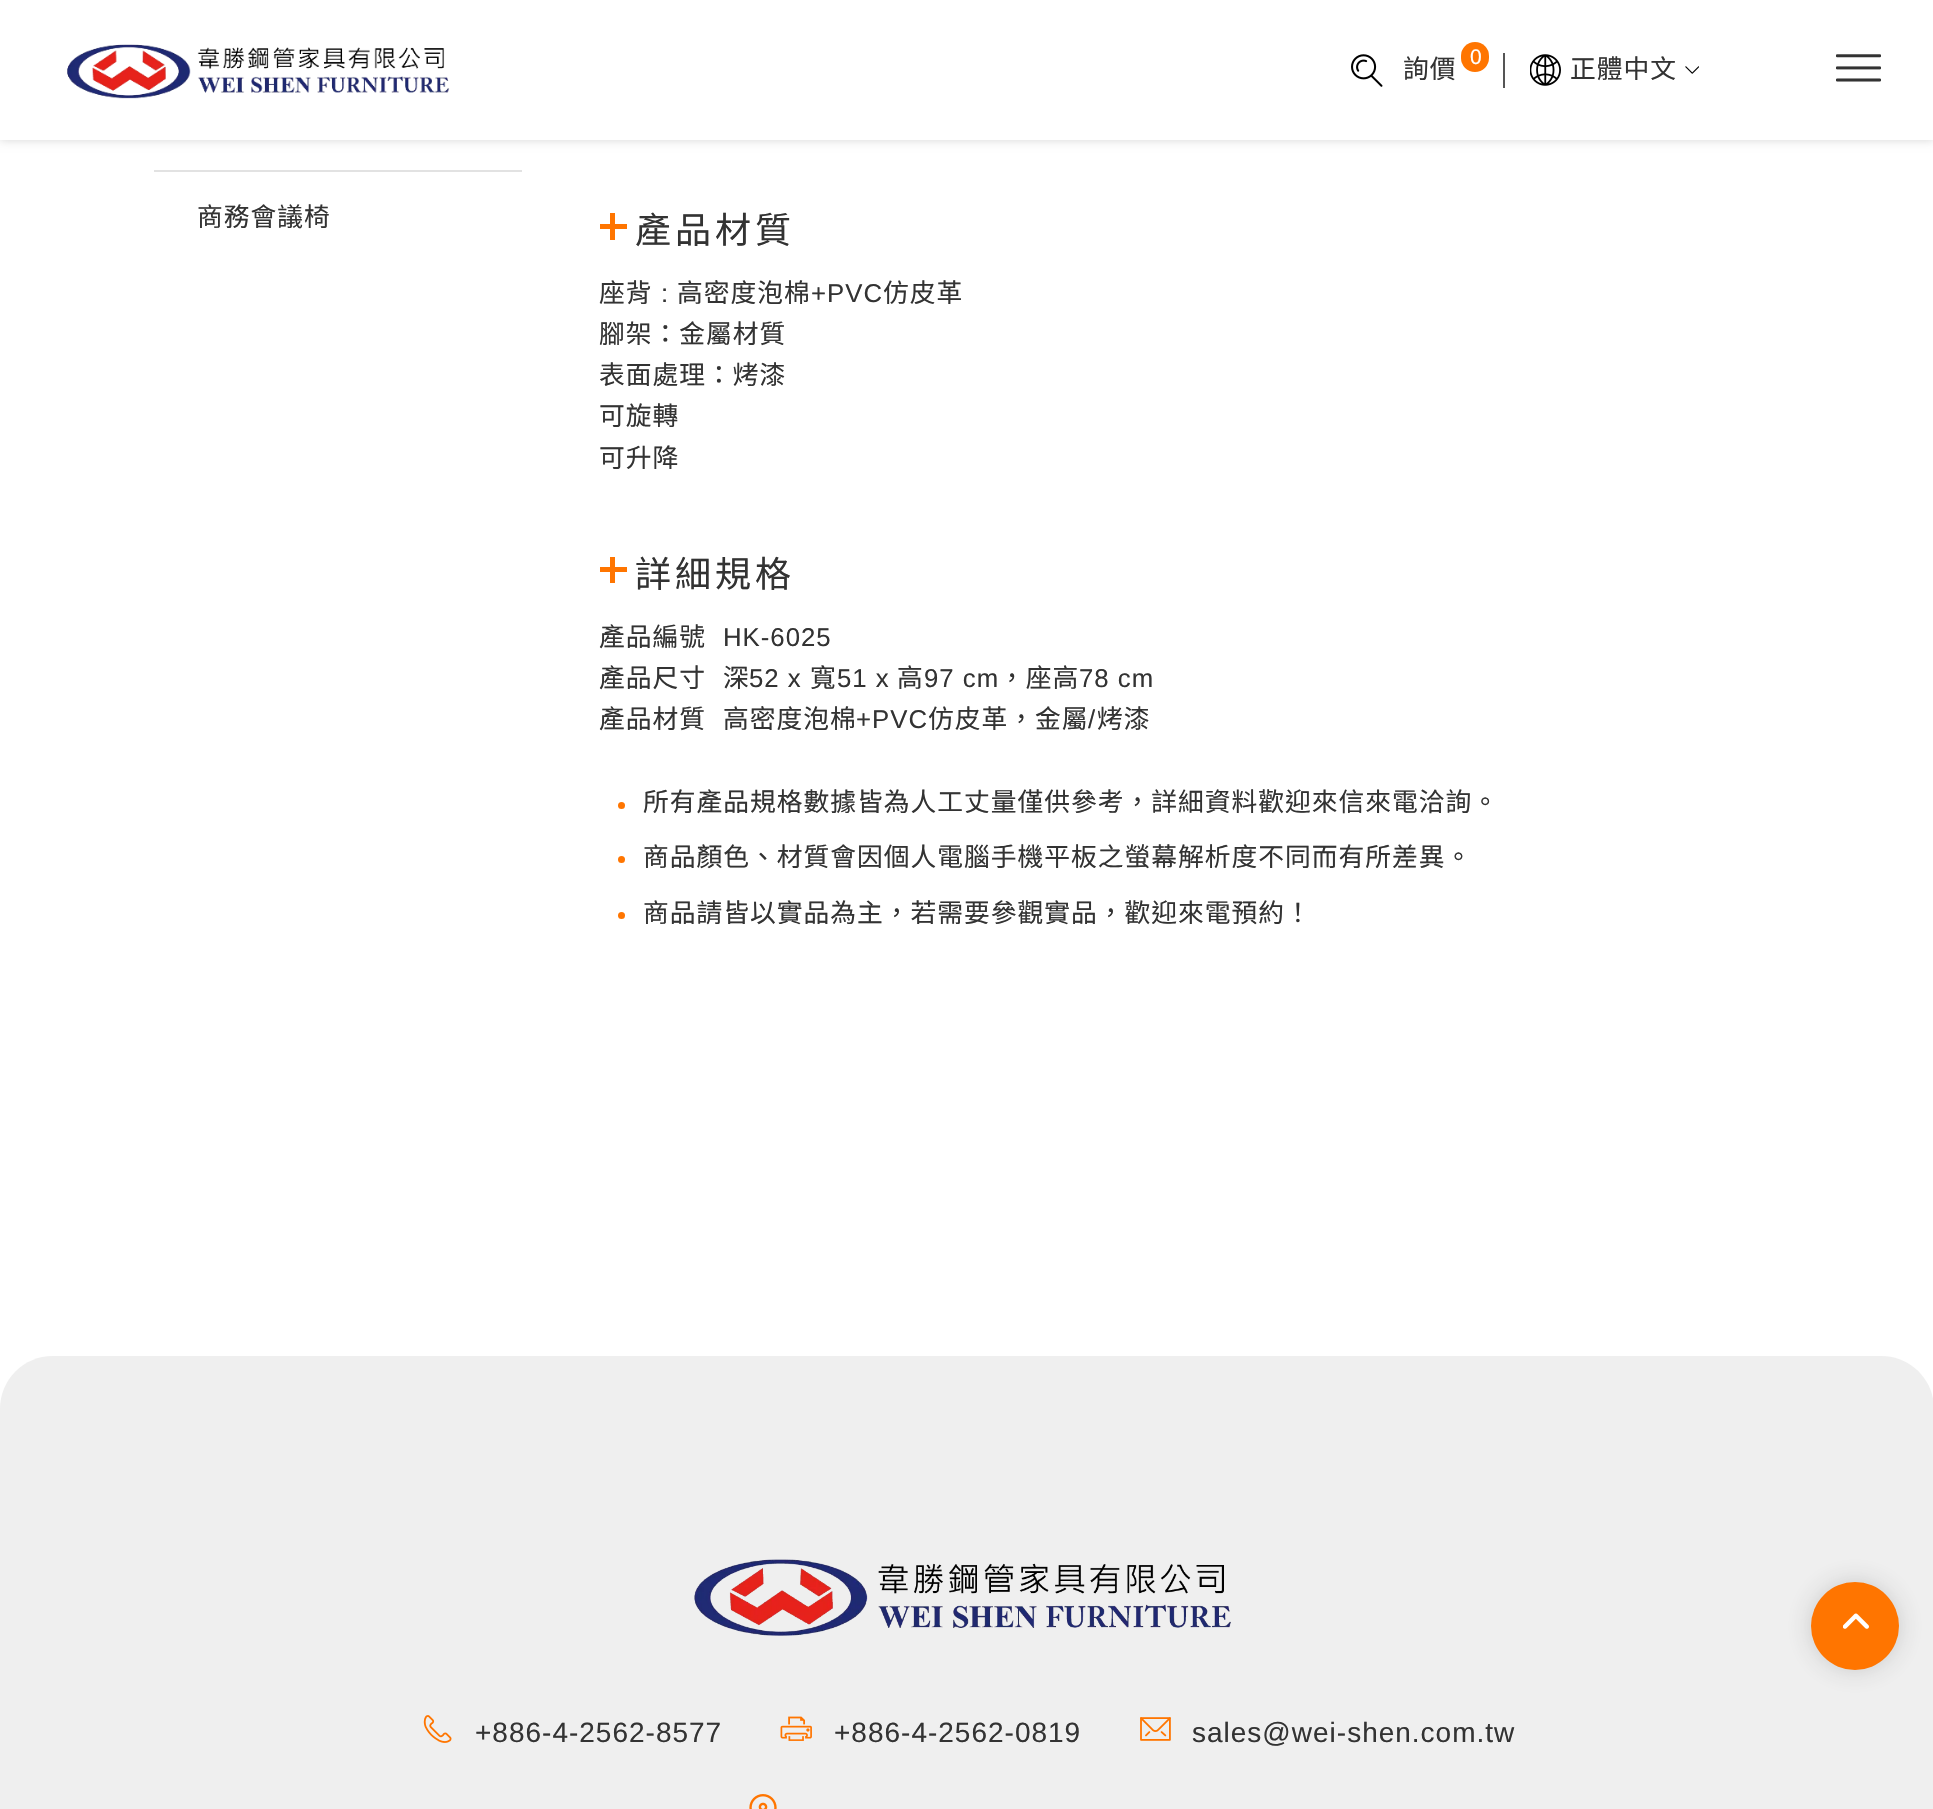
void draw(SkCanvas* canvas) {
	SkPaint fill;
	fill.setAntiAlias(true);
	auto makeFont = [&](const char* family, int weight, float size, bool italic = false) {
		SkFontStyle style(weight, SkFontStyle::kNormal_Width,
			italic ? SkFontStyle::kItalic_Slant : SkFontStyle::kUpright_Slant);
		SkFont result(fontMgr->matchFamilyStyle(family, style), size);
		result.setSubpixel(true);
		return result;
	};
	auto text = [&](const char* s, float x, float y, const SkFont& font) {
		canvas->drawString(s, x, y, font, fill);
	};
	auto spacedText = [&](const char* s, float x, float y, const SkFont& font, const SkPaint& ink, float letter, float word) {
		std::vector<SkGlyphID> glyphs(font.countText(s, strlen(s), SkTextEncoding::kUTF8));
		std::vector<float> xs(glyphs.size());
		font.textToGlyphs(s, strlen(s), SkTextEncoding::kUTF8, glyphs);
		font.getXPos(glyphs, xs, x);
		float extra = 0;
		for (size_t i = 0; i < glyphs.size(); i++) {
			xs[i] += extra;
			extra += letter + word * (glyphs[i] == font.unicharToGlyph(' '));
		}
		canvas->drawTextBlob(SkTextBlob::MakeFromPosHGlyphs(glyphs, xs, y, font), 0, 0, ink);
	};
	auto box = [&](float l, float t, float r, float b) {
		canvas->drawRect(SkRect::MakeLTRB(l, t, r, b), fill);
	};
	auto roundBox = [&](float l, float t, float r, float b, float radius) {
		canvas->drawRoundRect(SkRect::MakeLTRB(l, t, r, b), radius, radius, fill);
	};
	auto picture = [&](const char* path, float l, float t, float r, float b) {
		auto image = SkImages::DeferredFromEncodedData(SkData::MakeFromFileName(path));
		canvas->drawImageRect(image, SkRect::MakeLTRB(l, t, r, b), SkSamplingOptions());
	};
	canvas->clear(0xFFFFFFFF);
	fill.setColor(0x29000000);
	fill.setMaskFilter(SkMaskFilter::MakeBlur(kNormal_SkBlurStyle, 4.5f));
	canvas->drawRect(SkRect::MakeLTRB(0, 0, 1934, 140), fill);
	fill.setMaskFilter(nullptr);
	fill.setColor(0xFFFFFFFF);
	box(0, 0, 1933, 140);
	picture("image0.png", 67, 44, 450, 99);
	picture("image1.png", 1351, 54, 1383, 87);
	fill.setColor(0xFFFF7500);
	roundBox(1461, 42, 1489, 72, 14);
	fill.setColor(0xFF555555);
	box(1503, 53, 1505, 88);
	picture("image2.png", 1530, 54, 1561, 86);
	picture("image3.png", 1685, 66, 1699, 74);
	picture("image4.png", 1836, 54, 1881, 82);
	fill.setColor(0xFFE2E2E2);
	box(154, 170, 522, 172);
	fill.setColor(0xFFFF7500);
	box(600, 224, 627, 229);
	box(610, 213, 615, 240);
	box(600, 567, 627, 572);
	box(610, 557, 615, 583);
	canvas->drawCircle(621.5f, 805.5f, 3.5f, fill);
	canvas->drawCircle(621.5f, 859.5f, 3.5f, fill);
	canvas->drawCircle(621.5f, 915.5f, 3.5f, fill);
	fill.setColor(0xFFEFEFEF);
	canvas->drawPath(SkPathBuilder().moveTo(53, 1356).lineTo(1881, 1356).cubicTo(1910.5f, 1356, 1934, 1379.5f, 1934, 1409).lineTo(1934, 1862).lineTo(0, 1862).lineTo(0, 1409).cubicTo(0, 1379.5f, 23.5f, 1356, 53, 1356).close().detach(), fill);
	picture("image5.png", 694, 1559, 1231, 1636);
	picture("image6.png", 423, 1715, 452, 1743);
	picture("image7.png", 780, 1716, 812, 1741);
	picture("image8.png", 1140, 1717, 1171, 1741);
	picture("image9.png", 749, 1794, 777, 1809);
	fill.setColor(0x33323232);
	fill.setMaskFilter(SkMaskFilter::MakeBlur(kNormal_SkBlurStyle, 13));
	canvas->drawRoundRect(SkRect::MakeLTRB(1811, 1582, 1899, 1670), 44, 44, fill);
	fill.setMaskFilter(nullptr);
	fill.setColor(0xFFFF7500);
	canvas->drawCircle(1855, 1626, 44, fill);
	picture("image10.png", 1843, 1613, 1869, 1629);
	auto font1 = makeFont("Noto Sans CJK TC", 400, 25.75f);
	fill.setColor(0xFF333333);
	spacedText("詢價", 1403, 78, font1, fill, 1, 0);
	auto font2 = makeFont("Liberation Sans", 400, 21);
	fill.setColor(0xFFFFFFFF);
	text("0", 1470, 64, font2);
	fill.setColor(0xFF333333);
	spacedText("正體中文", 1570, 78, font1, fill, 1, 0);
	spacedText("商務會議椅", 197, 226, font1, fill, 1, 0);
	auto font3 = makeFont("Noto Sans CJK TC", 400, 36);
	spacedText("產品材質", 635, 243, font3, fill, 4, 0);
	spacedText("座背", 599, 302, font1, fill, 1, 0);
	auto font4 = makeFont("Liberation Sans", 400, 25.75f);
	spacedText(":", 661, 302, font4, fill, 1, 0);
	spacedText("高密度泡棉", 677, 302, font1, fill, 1, 0);
	spacedText("+PVC", 811, 302, font4, fill, 1, 0);
	spacedText("仿皮革", 883, 302, font1, fill, 1, 0);
	spacedText("腳架：金屬材質", 599, 343, font1, fill, 1, 0);
	spacedText("表面處理：烤漆", 599, 384, font1, fill, 1, 0);
	spacedText("可旋轉", 599, 425, font1, fill, 1, 0);
	spacedText("可升降", 599, 467, font1, fill, 1, 0);
	spacedText("詳細規格", 635, 587, font3, fill, 4, 0);
	spacedText("產品編號", 599, 646, font1, fill, 1, 0);
	spacedText("HK-6025", 723, 646, font4, fill, 1, 0);
	spacedText("產品尺寸", 599, 687, font1, fill, 1, 0);
	spacedText("深", 723, 687, font1, fill, 1, 0);
	spacedText("52 x", 749, 687, font4, fill, 1, 0);
	spacedText("寬", 810, 687, font1, fill, 1, 0);
	spacedText("51 x", 837, 687, font4, fill, 1, 0);
	spacedText("高", 897, 687, font1, fill, 1, 0);
	spacedText("97 cm", 924, 687, font4, fill, 1, 0);
	spacedText("，座高", 999, 687, font1, fill, 1, 0);
	spacedText("78 cm", 1079, 687, font4, fill, 1, 0);
	spacedText("產品材質", 599, 728, font1, fill, 1, 0);
	spacedText("高密度泡棉", 723, 728, font1, fill, 1, 0);
	spacedText("+PVC", 856, 728, font4, fill, 1, 0);
	spacedText("仿皮革，金屬", 928, 728, font1, fill, 1, 0);
	spacedText("/", 1088, 728, font4, fill, 1, 0);
	spacedText("烤漆", 1097, 728, font1, fill, 1, 0);
	spacedText("所有產品規格數據皆為人工丈量僅供參考，詳細資料歡迎來信來電洽詢。", 643, 811, font1, fill, 1, 0);
	spacedText("商品顏色、材質會因個人電腦手機平板之螢幕解析度不同而有所差異。", 643, 866, font1, fill, 1, 0);
	spacedText("商品請皆以實品為主，若需要參觀實品，歡迎來電預約！", 643, 922, font1, fill, 1, 0);
	auto font5 = makeFont("Liberation Sans", 400, 28);
	spacedText("+886-4-2562-8577", 475, 1742, font5, fill, 1, 0);
	spacedText("+886-4-2562-0819", 834, 1742, font5, fill, 1, 0);
	spacedText("sales@wei-shen.com.tw", 1192, 1742, font5, fill, 1, 0);
}
